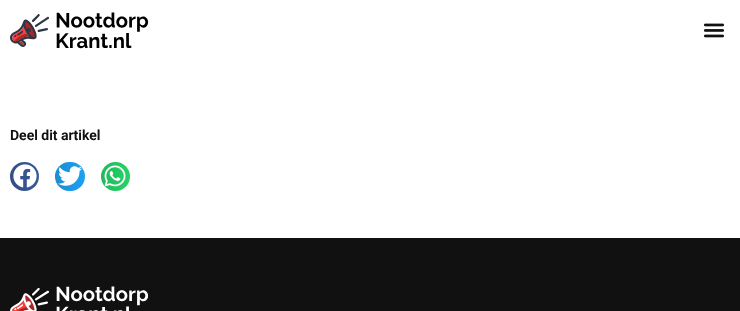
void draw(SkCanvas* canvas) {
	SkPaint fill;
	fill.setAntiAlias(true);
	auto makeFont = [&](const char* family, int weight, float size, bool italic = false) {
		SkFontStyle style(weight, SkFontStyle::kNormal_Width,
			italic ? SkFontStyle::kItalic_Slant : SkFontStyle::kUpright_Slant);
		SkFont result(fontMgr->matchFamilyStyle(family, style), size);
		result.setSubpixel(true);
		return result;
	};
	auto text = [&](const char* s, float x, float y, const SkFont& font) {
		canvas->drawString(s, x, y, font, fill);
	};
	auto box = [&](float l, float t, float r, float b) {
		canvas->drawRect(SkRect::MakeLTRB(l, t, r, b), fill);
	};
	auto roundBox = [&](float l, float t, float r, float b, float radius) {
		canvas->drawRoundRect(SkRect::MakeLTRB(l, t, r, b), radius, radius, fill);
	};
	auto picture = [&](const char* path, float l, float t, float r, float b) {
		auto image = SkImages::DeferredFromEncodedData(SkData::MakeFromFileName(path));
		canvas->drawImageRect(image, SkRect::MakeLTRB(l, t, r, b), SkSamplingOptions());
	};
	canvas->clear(0xFFFFFFFF);
	picture("image0.png", 10, 12, 149, 49);
	picture("image1.png", 703, 23, 725, 38);
	fill.setColor(0xFF3B5998);
	canvas->drawCircle(24.5f, 176.5f, 14.5f, fill);
	{
		const SkColor colors[] = {0x1F000000, 0x00000000};
		const float stops[] = {0, 1};
		const SkPoint ends[] = {{10, 177}, {39, 177}};
		fill.setShader(SkGradientShader::MakeLinear(ends, colors, stops, 2, SkTileMode::kClamp));
		fill.setAlpha(255);
	}
	canvas->drawCircle(24.5f, 176.5f, 14.5f, fill);
	picture("image2.png", 13, 164, 37, 188);
	fill.setShader(nullptr);
	fill.setColor(0xFF1DA1F2);
	roundBox(55, 162, 85, 191, 14.5f);
	{
		const SkColor colors[] = {0x1F000000, 0x00000000};
		const float stops[] = {0, 1};
		const SkPoint ends[] = {{55, 177}, {85, 177}};
		fill.setShader(SkGradientShader::MakeLinear(ends, colors, stops, 2, SkTileMode::kClamp));
		fill.setAlpha(255);
	}
	roundBox(55, 162, 85, 191, 14.5f);
	picture("image3.png", 58, 166, 82, 186);
	fill.setShader(nullptr);
	fill.setColor(0xFF25D366);
	canvas->drawCircle(115.5f, 176.5f, 14.5f, fill);
	{
		const SkColor colors[] = {0x1F000000, 0x00000000};
		const float stops[] = {0, 1};
		const SkPoint ends[] = {{101, 177}, {130, 177}};
		fill.setShader(SkGradientShader::MakeLinear(ends, colors, stops, 2, SkTileMode::kClamp));
		fill.setAlpha(255);
	}
	canvas->drawCircle(115.5f, 176.5f, 14.5f, fill);
	picture("image4.png", 104, 165, 126, 187);
	fill.setShader(nullptr);
	fill.setColor(0xFF111111);
	box(0, 238, 740, 311);
	picture("image5.png", 10, 286, 149, 311);
	auto font1 = makeFont("Roboto", 600, 14);
	text("Deel dit artikel", 10, 140, font1);
}
